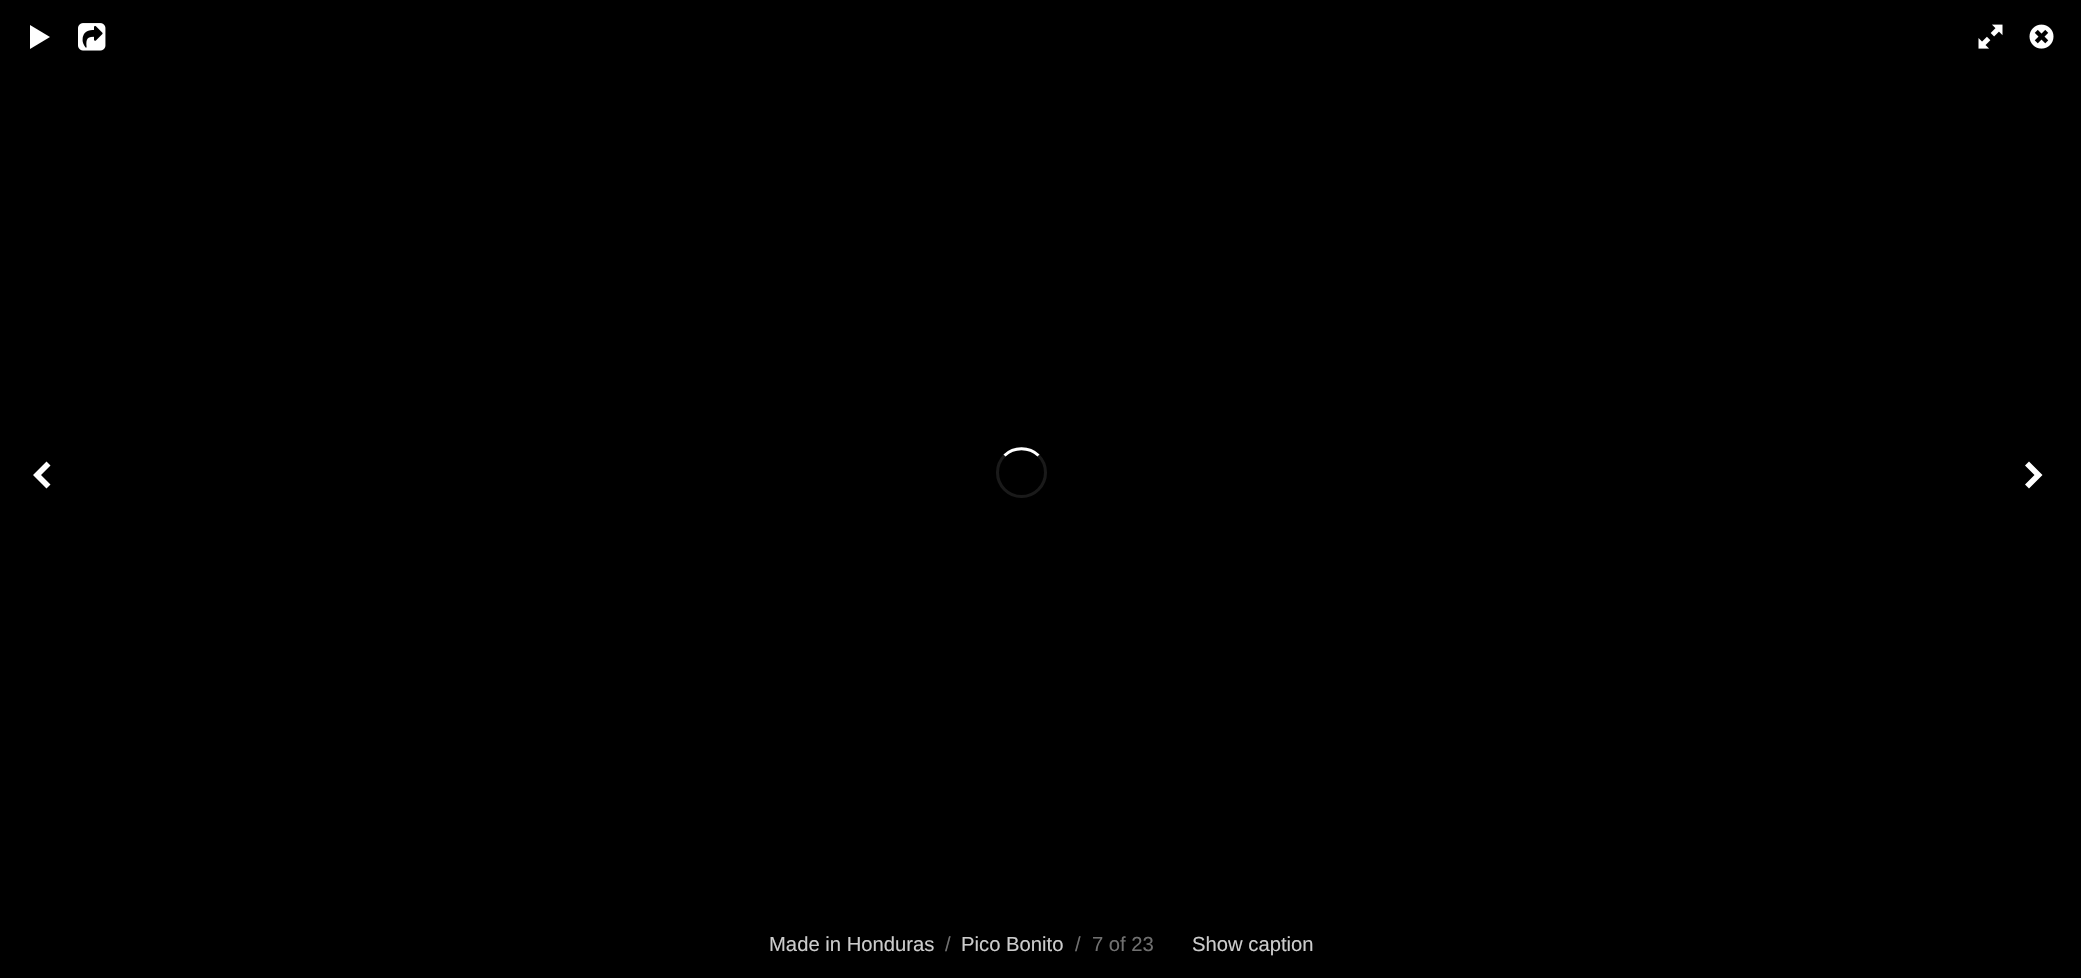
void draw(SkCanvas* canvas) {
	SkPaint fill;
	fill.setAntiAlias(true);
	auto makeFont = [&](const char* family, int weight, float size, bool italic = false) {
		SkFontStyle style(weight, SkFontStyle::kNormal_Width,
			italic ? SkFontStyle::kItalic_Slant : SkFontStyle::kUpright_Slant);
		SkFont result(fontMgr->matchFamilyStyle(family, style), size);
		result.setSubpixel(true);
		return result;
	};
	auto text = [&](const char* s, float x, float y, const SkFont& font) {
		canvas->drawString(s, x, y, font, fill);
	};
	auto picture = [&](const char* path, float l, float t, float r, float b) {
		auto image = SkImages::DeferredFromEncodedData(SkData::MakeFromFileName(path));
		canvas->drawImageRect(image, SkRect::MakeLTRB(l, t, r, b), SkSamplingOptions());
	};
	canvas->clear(0xFF000000);
	fill.setColor(0xFFFFFFFF);
	canvas->drawPath(SkPathBuilder().moveTo(30, 49).lineTo(30, 25).lineTo(50, 37).close().detach(), fill);
	picture("image0.png", 78, 23, 106, 51);
	picture("image1.png", 1978, 24, 2003, 49);
	picture("image2.png", 2029, 24, 2054, 49);
	canvas->drawPath(SkPathBuilder().moveTo(33, 475).lineTo(46.5f, 461.5f).lineTo(50.5f, 465.5f).lineTo(41, 475).lineTo(50.5f, 484.5f).lineTo(46.5f, 488.5f).close().detach(), fill);
	fill.setStyle(SkPaint::kStroke_Style);
	fill.setStrokeWidth(3);
	fill.setColor(0xFF1A1A1A);
	canvas->drawCircle(1021.5f, 472.5f, 24, fill);
	fill.setColor(0xFFFFFFFF);
	canvas->drawPath(SkPathBuilder().moveTo(1004.5f, 455.5f).cubicTo(1014, 446.5f, 1029, 446.5f, 1038.5f, 455.5f).detach(), fill);
	fill.setStyle(SkPaint::kFill_Style);
	canvas->drawPath(SkPathBuilder().moveTo(2025, 484.5f).lineTo(2034.5f, 475).lineTo(2025, 465.5f).lineTo(2029, 461.5f).lineTo(2042.5f, 475).lineTo(2029, 488.5f).close().detach(), fill);
	auto font1 = makeFont("Liberation Sans", 400, 20.25f);
	fill.setColor(0xFFCCCCCC);
	text("Made in Honduras", 769, 951, font1);
	fill.setColor(0xFF707070);
	text("/", 945, 951, font1);
	fill.setColor(0xFFCCCCCC);
	text("Pico Bonito", 961, 951, font1);
	fill.setColor(0xFF707070);
	text("/  7 of 23", 1075, 951, font1);
	fill.setColor(0xFFCCCCCC);
	text("Show caption", 1192, 951, font1);
}
